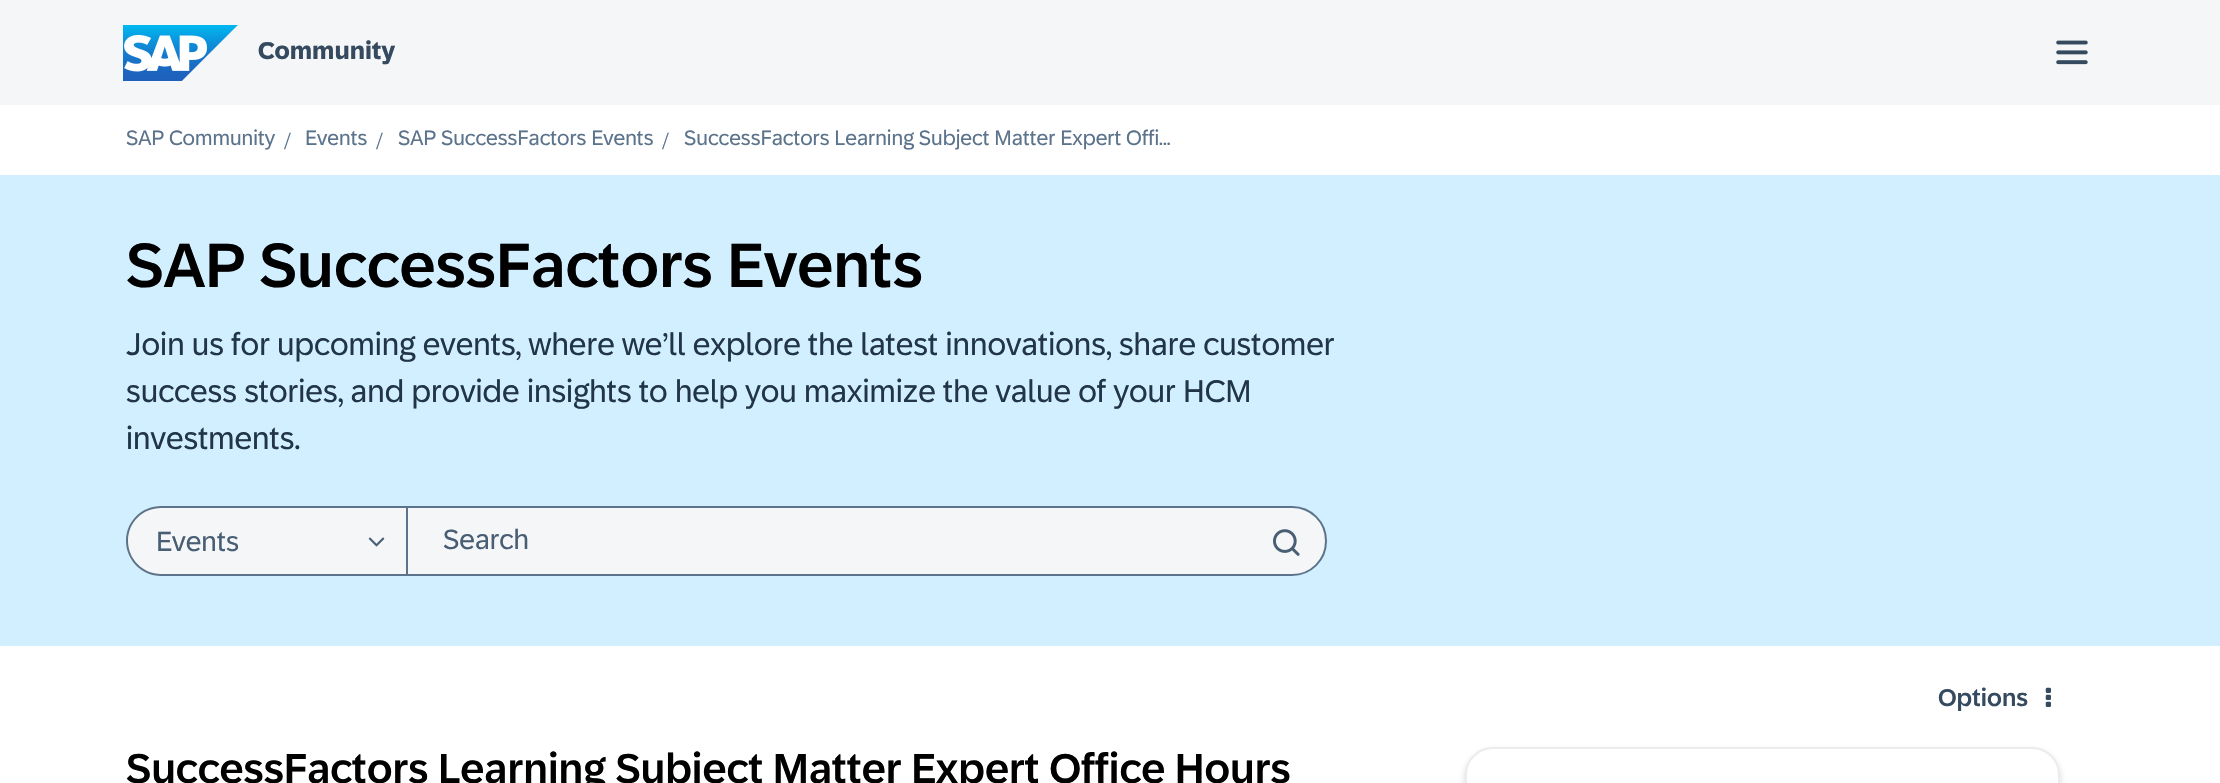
void draw(SkCanvas* canvas) {
	SkPaint fill;
	fill.setAntiAlias(true);
	auto makeFont = [&](const char* family, int weight, float size, bool italic = false) {
		SkFontStyle style(weight, SkFontStyle::kNormal_Width,
			italic ? SkFontStyle::kItalic_Slant : SkFontStyle::kUpright_Slant);
		SkFont result(fontMgr->matchFamilyStyle(family, style), size);
		result.setSubpixel(true);
		return result;
	};
	auto text = [&](const char* s, float x, float y, const SkFont& font) {
		canvas->drawString(s, x, y, font, fill);
	};
	auto box = [&](float l, float t, float r, float b) {
		canvas->drawRect(SkRect::MakeLTRB(l, t, r, b), fill);
	};
	auto picture = [&](const char* path, float l, float t, float r, float b) {
		auto image = SkImages::DeferredFromEncodedData(SkData::MakeFromFileName(path));
		canvas->drawImageRect(image, SkRect::MakeLTRB(l, t, r, b), SkSamplingOptions());
	};
	canvas->clear(0xFFFFFFFF);
	fill.setColor(0xFFF5F6F7);
	box(0, 0, 2220, 105);
	picture("image0.png", 123, 25, 238, 81);
	picture("image1.png", 2056, 40, 2088, 65);
	fill.setColor(0xFFD1EFFF);
	box(0, 175, 2220, 646);
	fill.setColor(0xFFF5F6F7);
	canvas->drawPath(SkPathBuilder().moveTo(161, 506).lineTo(406, 506).lineTo(406, 576).lineTo(161, 576).cubicTo(141.5f, 576, 126, 560.5f, 126, 541).cubicTo(126, 521.5f, 141.5f, 506, 161, 506).close().detach(), fill);
	fill.setColor(0xFF5B738B);
	canvas->drawPath(SkPathBuilder(SkPathFillType::kEvenOdd).moveTo(161, 506).lineTo(406, 506).lineTo(406, 576).lineTo(161, 576).cubicTo(142, 576, 126, 560, 126, 541).cubicTo(126, 521, 142, 506, 161, 506).close().moveTo(161, 508).lineTo(406, 508).lineTo(406, 574).lineTo(161, 574).cubicTo(143, 574, 128, 559, 128, 541).cubicTo(128, 522, 143, 508, 161, 508).close().detach(), fill);
	picture("image2.png", 368, 537, 385, 547);
	fill.setColor(0xFFF5F6F7);
	canvas->drawPath(SkPathBuilder().moveTo(407, 507).lineTo(1292, 507).cubicTo(1311, 507, 1326, 522, 1326, 541).cubicTo(1326, 560, 1311, 575, 1292, 575).lineTo(407, 575).close().detach(), fill);
	fill.setStyle(SkPaint::kStroke_Style);
	fill.setStrokeWidth(2);
	fill.setColor(0xFF5B738B);
	canvas->drawPath(SkPathBuilder().moveTo(407, 507).lineTo(1292, 507).cubicTo(1311, 507, 1326, 522, 1326, 541).cubicTo(1326, 560, 1311, 575, 1292, 575).lineTo(407, 575).close().detach(), fill);
	picture("image3.png", 1273, 529, 1300, 556);
	picture("image4.png", 2045, 687, 2051, 707);
	fill.setStyle(SkPaint::kFill_Style);
	fill.setColor(0x33223649);
	fill.setMaskFilter(SkMaskFilter::MakeBlur(kNormal_SkBlurStyle, 3.5f));
	canvas->drawRoundRect(SkRect::MakeLTRB(1465, 751, 2060, 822), 28, 28, fill);
	fill.setMaskFilter(nullptr);
	fill.setColor(0xFFFFFFFF);
	canvas->drawRoundRect(SkRect::MakeLTRB(1466, 748, 2059, 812), 27, 27, fill);
	fill.setStyle(SkPaint::kStroke_Style);
	fill.setColor(0xFFEAECEE);
	canvas->drawRoundRect(SkRect::MakeLTRB(1466, 748, 2059, 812), 27, 27, fill);
	auto font1 = makeFont("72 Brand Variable", 700, 24.5f);
	fill.setStyle(SkPaint::kFill_Style);
	fill.setColor(0xFF354A5F);
	text("Community", 258, 59, font1);
	auto font2 = makeFont("72 Brand Variable", 400, 21);
	fill.setColor(0xFF5B738B);
	text("SAP Community", 126, 145, font2);
	auto font3 = makeFont("Liberation Serif", 400, 24.5f);
	text("/", 284, 149, font3);
	text("Events", 305, 145, font2);
	text("/", 376, 149, font3);
	text("SAP SuccessFactors Events", 398, 145, font2);
	text("/", 662, 149, font3);
	text("SuccessFactors Learning Subject Matter Expert Offi...", 684, 145, font2);
	auto font4 = makeFont("72 Brand Variable", 500, 63);
	fill.setColor(0xFF000000);
	text("SAP SuccessFactors Events", 126, 287, font4);
	auto font5 = makeFont("72 Brand Variable", 400, 31.5f);
	fill.setColor(0xFF223548);
	text("Join us for upcoming events, where we’ll explore the latest innovations, share customer", 126, 355, font5);
	text("success stories, and provide insights to help you maximize the value of your HCM", 126, 402, font5);
	text("investments.", 126, 449, font5);
	auto font6 = makeFont("72 Brand Variable", 400, 28);
	fill.setColor(0xFF475E75);
	text("Events", 156, 551, font6);
	text("Search", 443, 549, font6);
	auto font7 = makeFont("72 Brand Variable", 500, 24.5f);
	fill.setColor(0xFF354A5F);
	text("Options", 1938, 706, font7);
	auto font8 = makeFont("72 Brand Variable", 500, 42);
	fill.setColor(0xFF000000);
	text("SuccessFactors Learning Subject Matter Expert Office Hours", 126, 783, font8);
}
